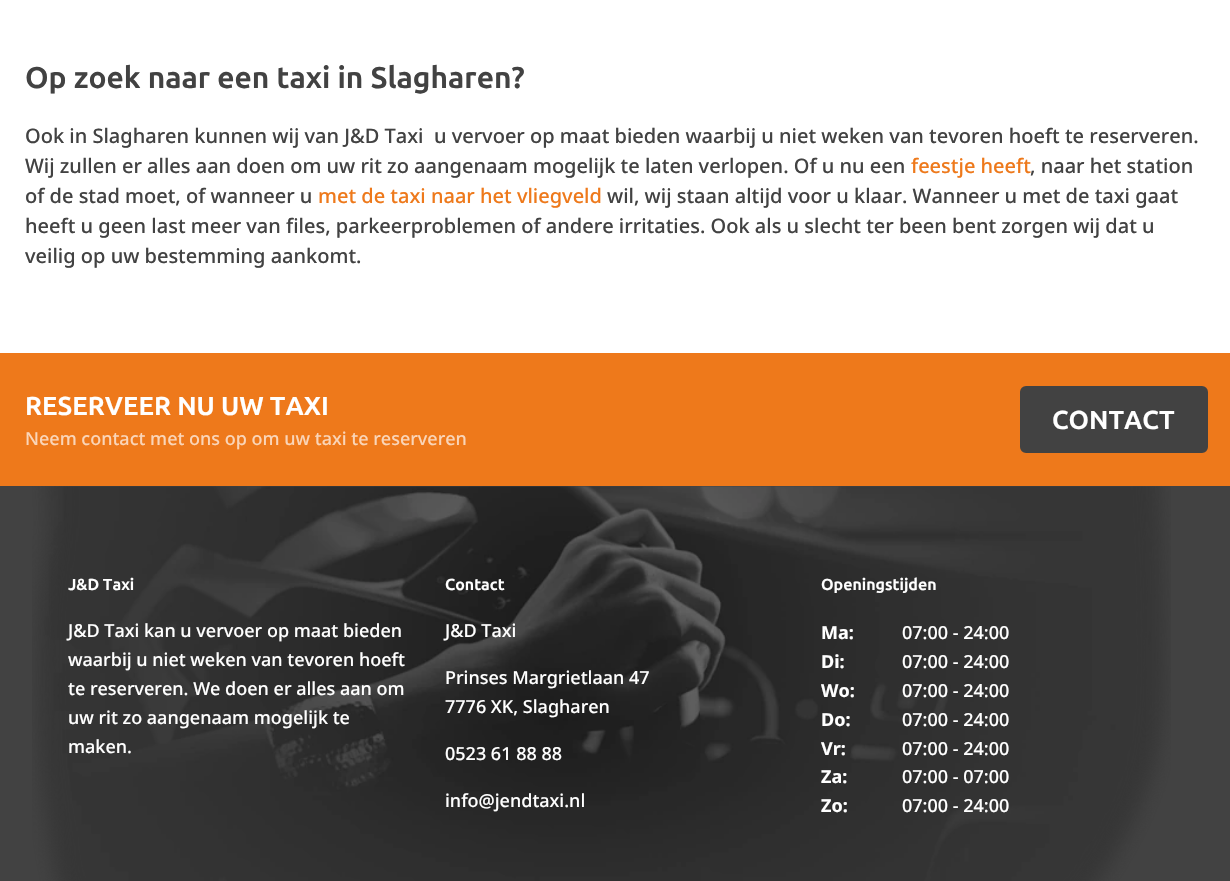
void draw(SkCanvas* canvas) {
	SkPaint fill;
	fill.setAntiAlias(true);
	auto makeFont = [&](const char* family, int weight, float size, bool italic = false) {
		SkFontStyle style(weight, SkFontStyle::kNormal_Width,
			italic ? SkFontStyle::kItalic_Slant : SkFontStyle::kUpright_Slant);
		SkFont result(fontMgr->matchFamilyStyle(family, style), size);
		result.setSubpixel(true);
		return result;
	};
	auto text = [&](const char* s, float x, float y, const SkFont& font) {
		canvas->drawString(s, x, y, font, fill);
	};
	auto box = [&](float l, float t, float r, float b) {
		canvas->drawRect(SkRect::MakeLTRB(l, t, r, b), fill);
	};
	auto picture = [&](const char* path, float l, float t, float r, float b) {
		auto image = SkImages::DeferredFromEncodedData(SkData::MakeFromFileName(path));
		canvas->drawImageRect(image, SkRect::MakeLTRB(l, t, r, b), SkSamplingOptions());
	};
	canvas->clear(0xFFFFFFFF);
	fill.setColor(0xFFEE791B);
	box(0, 353, 1230, 486);
	fill.setColor(0xFF424242);
	canvas->drawRoundRect(SkRect::MakeLTRB(1021.5f, 387.5f, 1206.5f, 451.5f), 4.5f, 4.5f, fill);
	fill.setStyle(SkPaint::kStroke_Style);
	fill.setStrokeWidth(3);
	canvas->drawRoundRect(SkRect::MakeLTRB(1021.5f, 387.5f, 1206.5f, 451.5f), 4.5f, 4.5f, fill);
	fill.setStyle(SkPaint::kFill_Style);
	box(0, 486, 1230, 881);
	picture("image0.png", 32, 486, 1171, 881);
	auto font1 = makeFont("Ubuntu", 700, 30);
	text("Op zoek naar een taxi in Slagharen?", 25, 88, font1);
	auto font2 = makeFont("Noto Sans", 500, 20);
	text("Ook in Slagharen kunnen wij van J&D Taxi  u vervoer op maat bieden waarbij u niet weken van tevoren hoeft te reserveren.", 25, 143, font2);
	text("Wij zullen er alles aan doen om uw rit zo aangenaam mogelijk te laten verlopen. Of u nu een", 25, 173, font2);
	fill.setColor(0xFFEE791B);
	text("feestje heeft", 911, 173, font2);
	fill.setColor(0xFF424242);
	text(", naar het station", 1030, 173, font2);
	text("of de stad moet, of wanneer u", 25, 203, font2);
	fill.setColor(0xFFEE791B);
	text("met de taxi naar het vliegveld", 318, 203, font2);
	fill.setColor(0xFF424242);
	text("wil, wij staan altijd voor u klaar. Wanneer u met de taxi gaat", 607, 203, font2);
	text("heeft u geen last meer van files, parkeerproblemen of andere irritaties. Ook als u slecht ter been bent zorgen wij dat u", 25, 233, font2);
	text("veilig op uw bestemming aankomt.", 25, 263, font2);
	auto font3 = makeFont("Ubuntu", 700, 26);
	fill.setColor(0xFFFFFFFF);
	text("RESERVEER NU UW TAXI", 25, 415, font3);
	auto font4 = makeFont("Noto Sans", 500, 18);
	fill.setColor(0xFFFAD5B8);
	text("Neem contact met ons op om uw taxi te reserveren", 25, 445, font4);
	fill.setColor(0xFFFFFFFF);
	text("CONTACT", 1052, 429, font3);
	auto font5 = makeFont("Ubuntu", 700, 16);
	text("J&D Taxi", 68, 590, font5);
	text("J&D Taxi kan u vervoer op maat bieden", 68, 637, font4);
	text("waarbij u niet weken van tevoren hoeft", 68, 666, font4);
	text("te reserveren. We doen er alles aan om", 68, 695, font4);
	text("uw rit zo aangenaam mogelijk te", 68, 724, font4);
	text("maken.", 68, 753, font4);
	text("Contact", 445, 590, font5);
	text("J&D Taxi", 445, 637, font4);
	text("Prinses Margrietlaan 47", 445, 684, font4);
	text("7776 XK, Slagharen", 445, 713, font4);
	text("0523 61 88 88", 445, 760, font4);
	text("info@jendtaxi.nl", 445, 807, font4);
	text("Openingstijden", 821, 590, font5);
	auto font6 = makeFont("Noto Sans", 700, 18);
	text("Ma:", 821, 639, font6);
	text("07:00 - 24:00", 902, 639, font4);
	text("Di:", 821, 668, font6);
	text("07:00 - 24:00", 902, 668, font4);
	text("Wo:", 821, 697, font6);
	text("07:00 - 24:00", 902, 697, font4);
	text("Do:", 821, 726, font6);
	text("07:00 - 24:00", 902, 726, font4);
	text("Vr:", 821, 755, font6);
	text("07:00 - 24:00", 902, 755, font4);
	text("Za:", 821, 783, font6);
	text("07:00 - 07:00", 902, 783, font4);
	text("Zo:", 821, 812, font6);
	text("07:00 - 24:00", 902, 812, font4);
}
